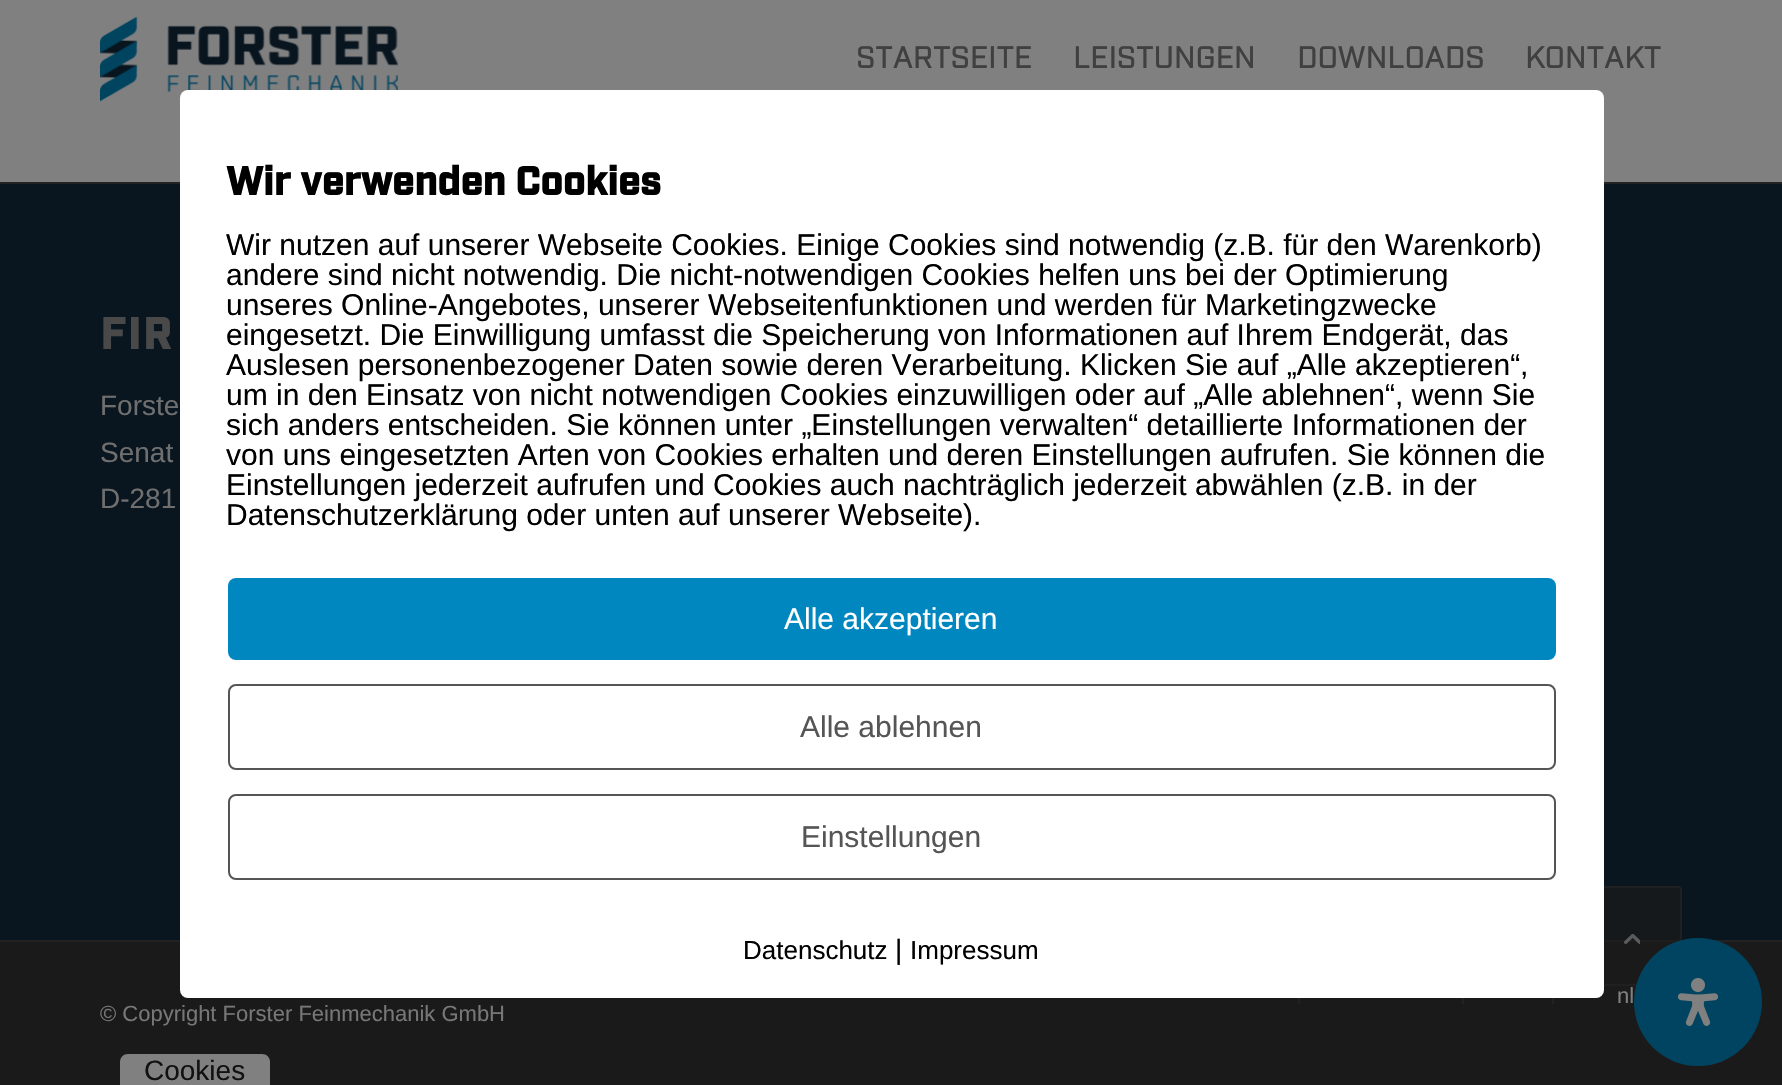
void draw(SkCanvas* canvas) {
	SkPaint fill;
	fill.setAntiAlias(true);
	auto makeFont = [&](const char* family, int weight, float size, bool italic = false) {
		SkFontStyle style(weight, SkFontStyle::kNormal_Width,
			italic ? SkFontStyle::kItalic_Slant : SkFontStyle::kUpright_Slant);
		SkFont result(fontMgr->matchFamilyStyle(family, style), size);
		result.setSubpixel(true);
		return result;
	};
	auto text = [&](const char* s, float x, float y, const SkFont& font) {
		canvas->drawString(s, x, y, font, fill);
	};
	auto spacedText = [&](const char* s, float x, float y, const SkFont& font, const SkPaint& ink, float letter, float word) {
		std::vector<SkGlyphID> glyphs(font.countText(s, strlen(s), SkTextEncoding::kUTF8));
		std::vector<float> xs(glyphs.size());
		font.textToGlyphs(s, strlen(s), SkTextEncoding::kUTF8, glyphs);
		font.getXPos(glyphs, xs, x);
		float extra = 0;
		for (size_t i = 0; i < glyphs.size(); i++) {
			xs[i] += extra;
			extra += letter + word * (glyphs[i] == font.unicharToGlyph(' '));
		}
		canvas->drawTextBlob(SkTextBlob::MakeFromPosHGlyphs(glyphs, xs, y, font), 0, 0, ink);
	};
	auto box = [&](float l, float t, float r, float b) {
		canvas->drawRect(SkRect::MakeLTRB(l, t, r, b), fill);
	};
	auto roundBox = [&](float l, float t, float r, float b, float radius) {
		canvas->drawRoundRect(SkRect::MakeLTRB(l, t, r, b), radius, radius, fill);
	};
	auto picture = [&](const char* path, float l, float t, float r, float b) {
		auto image = SkImages::DeferredFromEncodedData(SkData::MakeFromFileName(path));
		canvas->drawImageRect(image, SkRect::MakeLTRB(l, t, r, b), SkSamplingOptions());
	};
	canvas->clear(0xFF808080);
	picture("image0.png", 100, 16, 398, 102);
	fill.setColor(0xFF09151F);
	box(0, 184, 1782, 940);
	fill.setColor(0xFF222222);
	box(0, 182, 1782, 184);
	fill.setColor(0xFF1A1A1A);
	box(0, 942, 1782, 1085);
	fill.setColor(0xFF222222);
	box(0, 940, 1782, 942);
	box(1298, 998, 1300, 1004);
	box(1462, 998, 1464, 1004);
	box(1552, 998, 1554, 1004);
	fill.setColor(0xB31A1A1A);
	roundBox(1582, 886, 1682, 986, 4);
	fill.setStyle(SkPaint::kStroke_Style);
	fill.setStrokeWidth(2);
	fill.setColor(0xB3222222);
	canvas->drawRoundRect(SkRect::MakeLTRB(1583, 887, 1681, 985), 3, 3, fill);
	fill.setStyle(SkPaint::kFill_Style);
	fill.setColor(0xFFFFFFFF);
	roundBox(180, 90, 1604, 998, 8);
	fill.setColor(0xFF0087BF);
	roundBox(228, 578, 1556, 660, 8);
	fill.setStyle(SkPaint::kStroke_Style);
	fill.setColor(0xFF555555);
	canvas->drawRoundRect(SkRect::MakeLTRB(229, 685, 1555, 769), 7, 7, fill);
	canvas->drawRoundRect(SkRect::MakeLTRB(229, 795, 1555, 879), 7, 7, fill);
	picture("image1.png", 1624, 933, 1640, 945);
	fill.setStyle(SkPaint::kFill_Style);
	fill.setColor(0xFF004461);
	canvas->drawCircle(1698, 1002, 64, fill);
	picture("image2.png", 1677, 978, 1719, 1026);
	fill.setColor(0xFF808080);
	canvas->drawPath(SkPathBuilder().moveTo(128, 1054).lineTo(262, 1054).cubicTo(266.5f, 1054, 270, 1057.5f, 270, 1062).lineTo(270, 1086).lineTo(120, 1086).lineTo(120, 1062).cubicTo(120, 1057.5f, 123.5f, 1054, 128, 1054).close().detach(), fill);
	auto font1 = makeFont("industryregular", 700, 30);
	fill.setColor(0xFF404040);
	spacedText("STARTSEITE", 856, 68, font1, fill, 0.5f, 0);
	spacedText("LEISTUNGEN", 1073, 68, font1, fill, 0.5f, 0);
	spacedText("DOWNLOADS", 1297, 68, font1, fill, 0.5f, 0);
	spacedText("KONTAKT", 1525, 68, font1, fill, 0.5f, 0);
	auto font2 = makeFont("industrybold", 700, 44);
	fill.setColor(0xFF494949);
	spacedText("FIR", 100, 349, font2, fill, 2, 0);
	auto font3 = makeFont("Liberation Sans", 400, 28);
	fill.setColor(0xFF6F6F6F);
	text("Forste", 100, 415, font3);
	text("Senat", 100, 462, font3);
	text("D-281", 100, 508, font3);
	auto font4 = makeFont("Liberation Sans", 400, 22);
	fill.setColor(0xFF808080);
	text("nl", 1617, 1003, font4);
	fill.setColor(0xFF777777);
	text("© Copyright Forster Feinmechanik GmbH", 100, 1021, font4);
	auto font5 = makeFont("industrybold", 700, 40);
	fill.setColor(0xFF000000);
	text("Wir verwenden Cookies", 226, 195, font5);
	auto font6 = makeFont("Liberation Sans", 400, 30);
	text("Wir nutzen auf unserer Webseite Cookies. Einige Cookies sind notwendig (z.B. für den Warenkorb)", 226, 255, font6);
	text("andere sind nicht notwendig. Die nicht-notwendigen Cookies helfen uns bei der Optimierung", 226, 285, font6);
	text("unseres Online-Angebotes, unserer Webseitenfunktionen und werden für Marketingzwecke", 226, 315, font6);
	text("eingesetzt. Die Einwilligung umfasst die Speicherung von Informationen auf Ihrem Endgerät, das", 226, 345, font6);
	text("Auslesen personenbezogener Daten sowie deren Verarbeitung. Klicken Sie auf „Alle akzeptieren“,", 226, 375, font6);
	text("um in den Einsatz von nicht notwendigen Cookies einzuwilligen oder auf „Alle ablehnen“, wenn Sie", 226, 405, font6);
	text("sich anders entscheiden. Sie können unter „Einstellungen verwalten“ detaillierte Informationen der", 226, 435, font6);
	text("von uns eingesetzten Arten von Cookies erhalten und deren Einstellungen aufrufen. Sie können die", 226, 465, font6);
	text("Einstellungen jederzeit aufrufen und Cookies auch nachträglich jederzeit abwählen (z.B. in der", 226, 495, font6);
	text("Datenschutzerklärung oder unten auf unserer Webseite).", 226, 525, font6);
	fill.setColor(0xFFFFFFFF);
	text("Alle akzeptieren", 784, 629, font6);
	fill.setColor(0xFF555555);
	text("Alle ablehnen", 800, 737, font6);
	text("Einstellungen", 801, 847, font6);
	auto font7 = makeFont("Liberation Sans", 400, 26);
	fill.setColor(0xFF000000);
	text("Datenschutz", 743, 959, font7);
	text("|", 895, 959, font3);
	text("Impressum", 910, 959, font7);
	fill.setColor(0xFF111111);
	text("Cookies", 144, 1080, font3);
}
